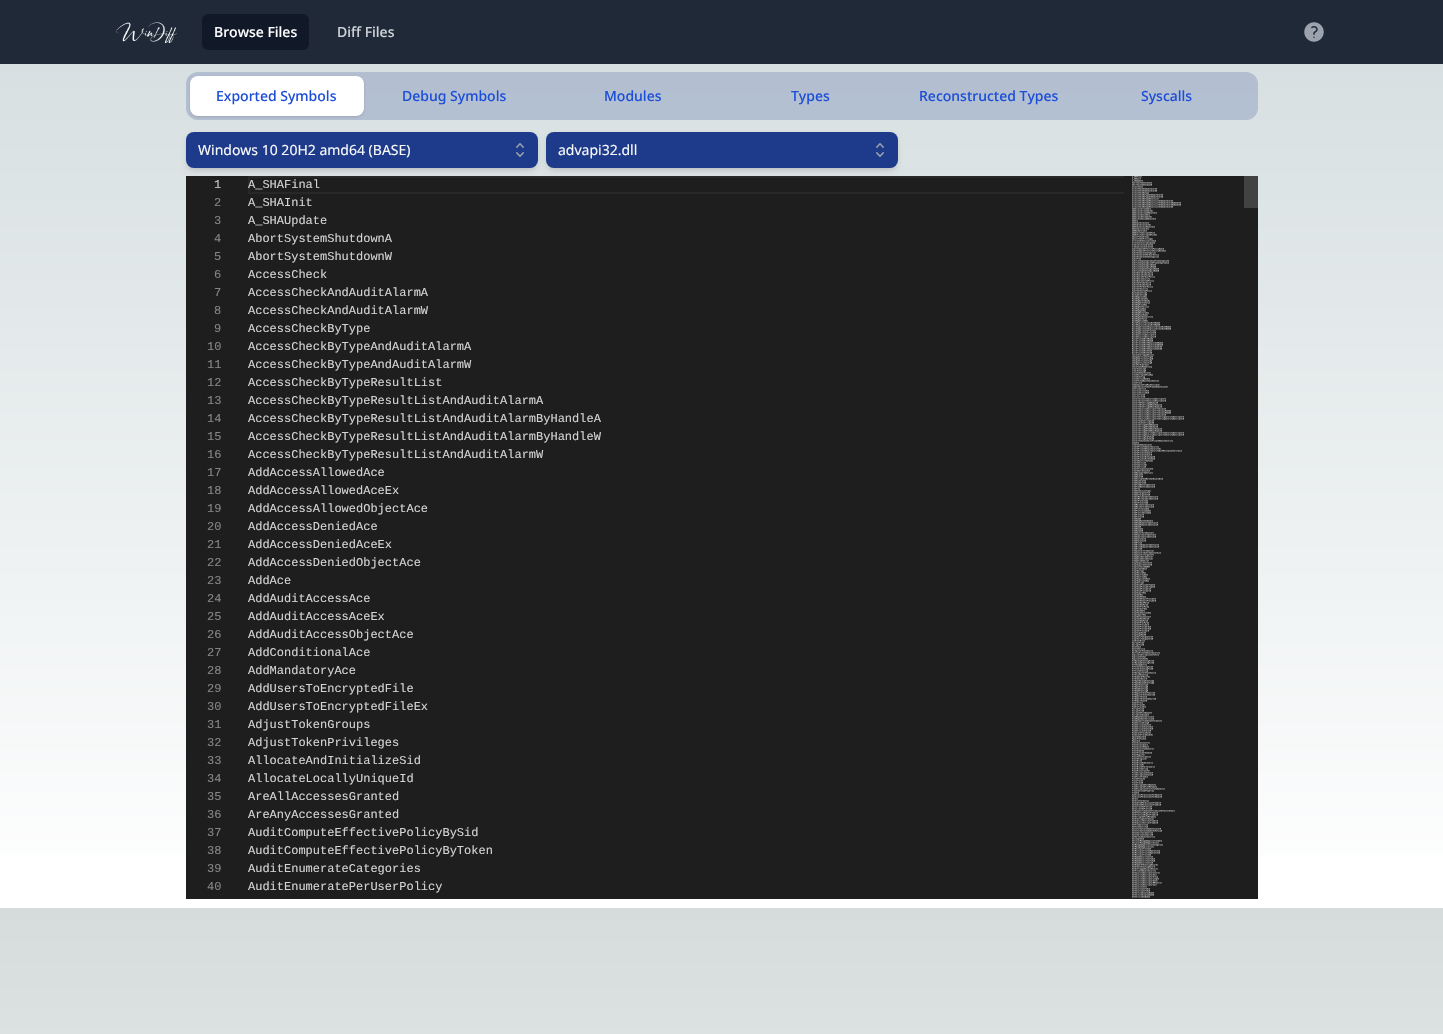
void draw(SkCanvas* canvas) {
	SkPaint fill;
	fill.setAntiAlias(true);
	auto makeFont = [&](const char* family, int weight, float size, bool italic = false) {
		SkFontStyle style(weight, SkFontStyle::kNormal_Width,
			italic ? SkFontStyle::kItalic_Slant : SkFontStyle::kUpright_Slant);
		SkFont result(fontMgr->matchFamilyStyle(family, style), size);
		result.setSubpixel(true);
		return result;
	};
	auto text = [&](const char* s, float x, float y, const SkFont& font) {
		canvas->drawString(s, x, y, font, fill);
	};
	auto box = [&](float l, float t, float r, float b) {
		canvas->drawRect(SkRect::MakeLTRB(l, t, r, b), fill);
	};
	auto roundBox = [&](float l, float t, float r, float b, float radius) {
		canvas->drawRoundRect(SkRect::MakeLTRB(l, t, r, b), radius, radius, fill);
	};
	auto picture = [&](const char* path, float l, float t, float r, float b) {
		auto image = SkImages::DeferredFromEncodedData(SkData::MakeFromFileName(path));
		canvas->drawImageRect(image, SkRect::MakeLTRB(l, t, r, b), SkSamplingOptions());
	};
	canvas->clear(0xFFFFFFFF);
	{
		const SkColor colors[] = {0xFFD4DDDF, 0xFFFFFFFF};
		const float stops[] = {0, 1};
		const SkPoint ends[] = {{722, 0}, {722, 908}};
		fill.setShader(SkGradientShader::MakeLinear(ends, colors, stops, 2, SkTileMode::kClamp));
		fill.setAlpha(255);
	}
	box(0, 64, 1443, 855);
	{
		const SkColor colors[] = {0xFFD6DCDC, 0xFFFFFFFF};
		const float stops[] = {0, 1};
		const SkPoint ends[] = {{722, 908}, {722, 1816}};
		fill.setShader(SkGradientShader::MakeLinear(ends, colors, stops, 2, SkTileMode::kClamp));
		fill.setAlpha(255);
	}
	box(0, 908, 1443, 1034);
	fill.setShader(nullptr);
	fill.setColor(0xFF1F2937);
	box(0, 0, 1443, 64);
	picture("image0.png", 116, 22, 177, 44);
	fill.setColor(0xFF111827);
	roundBox(202, 14, 309, 50, 6);
	picture("image1.png", 1304, 22, 1324, 42);
	fill.setColor(0x331E3A8A);
	roundBox(186, 72, 1258, 120, 12);
	fill.setColor(0x1A000000);
	fill.setMaskFilter(SkMaskFilter::MakeBlur(kNormal_SkBlurStyle, 1));
	canvas->drawRoundRect(SkRect::MakeLTRB(191, 78, 363, 116), 7, 7, fill);
	fill.setMaskFilter(nullptr);
	fill.setMaskFilter(SkMaskFilter::MakeBlur(kNormal_SkBlurStyle, 1.5f));
	canvas->drawRoundRect(SkRect::MakeLTRB(190, 77, 364, 117), 8, 8, fill);
	fill.setMaskFilter(nullptr);
	fill.setColor(0xFFFFFFFF);
	roundBox(190, 76, 364, 116, 8);
	fill.setColor(0x1A000000);
	fill.setMaskFilter(SkMaskFilter::MakeBlur(kNormal_SkBlurStyle, 2));
	canvas->drawRoundRect(SkRect::MakeLTRB(188, 136, 536, 168), 6, 6, fill);
	fill.setMaskFilter(nullptr);
	fill.setMaskFilter(SkMaskFilter::MakeBlur(kNormal_SkBlurStyle, 3));
	canvas->drawRoundRect(SkRect::MakeLTRB(187, 137, 537, 171), 7, 7, fill);
	fill.setMaskFilter(nullptr);
	fill.setColor(0xFF1E3A8A);
	roundBox(186, 132, 538, 168, 8);
	picture("image2.png", 516, 143, 524, 157);
	fill.setColor(0x1A000000);
	fill.setMaskFilter(SkMaskFilter::MakeBlur(kNormal_SkBlurStyle, 2));
	canvas->drawRoundRect(SkRect::MakeLTRB(548, 136, 896, 168), 6, 6, fill);
	fill.setMaskFilter(nullptr);
	fill.setMaskFilter(SkMaskFilter::MakeBlur(kNormal_SkBlurStyle, 3));
	canvas->drawRoundRect(SkRect::MakeLTRB(547, 137, 897, 171), 7, 7, fill);
	fill.setMaskFilter(nullptr);
	fill.setColor(0xFF1E3A8A);
	roundBox(546, 132, 898, 168, 8);
	picture("image2.png", 876, 143, 884, 157);
	fill.setColor(0xFF1E1E1E);
	box(186, 176, 1258, 899);
	fill.setStyle(SkPaint::kStroke_Style);
	fill.setStrokeWidth(2);
	fill.setColor(0xFF282828);
	canvas->drawRect(SkRect::MakeLTRB(249, 177, 1137, 193), fill);
	fill.setStyle(SkPaint::kFill_Style);
	fill.setColor(0xFF424242);
	box(1244, 176, 1258, 208);
	picture("image3.png", 1124, 176, 1184, 898);
	auto font1 = makeFont("Noto Sans", 500, 14);
	fill.setColor(0xFFFFFFFF);
	text("Browse Files", 214, 37, font1);
	fill.setColor(0xFFD1D5DB);
	text("Diff Files", 337, 37, font1);
	fill.setColor(0xFF1D4ED8);
	text("Exported Symbols", 216, 101, font1);
	text("Debug Symbols", 402, 101, font1);
	text("Modules", 604, 101, font1);
	text("Types", 791, 101, font1);
	text("Reconstructed Types", 919, 101, font1);
	text("Syscalls", 1141, 101, font1);
	auto font2 = makeFont("Noto Sans", 400, 14);
	fill.setColor(0xFFF9FAFB);
	text("Windows 10 20H2 amd64 (BASE)", 198, 155, font2);
	text("advapi32.dll", 558, 155, font2);
	auto font3 = makeFont("Liberation Mono", 400, 12);
	fill.setColor(0xFFC6C6C6);
	text("1", 214, 188, font3);
	fill.setColor(0xFF858585);
	text("2", 214, 206, font3);
	text("3", 214, 224, font3);
	text("4", 214, 242, font3);
	text("5", 214, 260, font3);
	text("6", 214, 278, font3);
	text("7", 214, 296, font3);
	text("8", 214, 314, font3);
	text("9", 214, 332, font3);
	text("10", 207, 350, font3);
	text("11", 207, 368, font3);
	text("12", 207, 386, font3);
	text("13", 207, 404, font3);
	text("14", 207, 422, font3);
	text("15", 207, 440, font3);
	text("16", 207, 458, font3);
	text("17", 207, 476, font3);
	text("18", 207, 494, font3);
	text("19", 207, 512, font3);
	text("20", 207, 530, font3);
	text("21", 207, 548, font3);
	text("22", 207, 566, font3);
	text("23", 207, 584, font3);
	text("24", 207, 602, font3);
	text("25", 207, 620, font3);
	text("26", 207, 638, font3);
	text("27", 207, 656, font3);
	text("28", 207, 674, font3);
	text("29", 207, 692, font3);
	text("30", 207, 710, font3);
	text("31", 207, 728, font3);
	text("32", 207, 746, font3);
	text("33", 207, 764, font3);
	text("34", 207, 782, font3);
	text("35", 207, 800, font3);
	text("36", 207, 818, font3);
	text("37", 207, 836, font3);
	text("38", 207, 854, font3);
	text("39", 207, 872, font3);
	text("40", 207, 890, font3);
	fill.setColor(0xFFD4D4D4);
	text("A_SHAFinal", 248, 188, font3);
	text("A_SHAInit", 248, 206, font3);
	text("A_SHAUpdate", 248, 224, font3);
	text("AbortSystemShutdownA", 248, 242, font3);
	text("AbortSystemShutdownW", 248, 260, font3);
	text("AccessCheck", 248, 278, font3);
	text("AccessCheckAndAuditAlarmA", 248, 296, font3);
	text("AccessCheckAndAuditAlarmW", 248, 314, font3);
	text("AccessCheckByType", 248, 332, font3);
	text("AccessCheckByTypeAndAuditAlarmA", 248, 350, font3);
	text("AccessCheckByTypeAndAuditAlarmW", 248, 368, font3);
	text("AccessCheckByTypeResultList", 248, 386, font3);
	text("AccessCheckByTypeResultListAndAuditAlarmA", 248, 404, font3);
	text("AccessCheckByTypeResultListAndAuditAlarmByHandleA", 248, 422, font3);
	text("AccessCheckByTypeResultListAndAuditAlarmByHandleW", 248, 440, font3);
	text("AccessCheckByTypeResultListAndAuditAlarmW", 248, 458, font3);
	text("AddAccessAllowedAce", 248, 476, font3);
	text("AddAccessAllowedAceEx", 248, 494, font3);
	text("AddAccessAllowedObjectAce", 248, 512, font3);
	text("AddAccessDeniedAce", 248, 530, font3);
	text("AddAccessDeniedAceEx", 248, 548, font3);
	text("AddAccessDeniedObjectAce", 248, 566, font3);
	text("AddAce", 248, 584, font3);
	text("AddAuditAccessAce", 248, 602, font3);
	text("AddAuditAccessAceEx", 248, 620, font3);
	text("AddAuditAccessObjectAce", 248, 638, font3);
	text("AddConditionalAce", 248, 656, font3);
	text("AddMandatoryAce", 248, 674, font3);
	text("AddUsersToEncryptedFile", 248, 692, font3);
	text("AddUsersToEncryptedFileEx", 248, 710, font3);
	text("AdjustTokenGroups", 248, 728, font3);
	text("AdjustTokenPrivileges", 248, 746, font3);
	text("AllocateAndInitializeSid", 248, 764, font3);
	text("AllocateLocallyUniqueId", 248, 782, font3);
	text("AreAllAccessesGranted", 248, 800, font3);
	text("AreAnyAccessesGranted", 248, 818, font3);
	text("AuditComputeEffectivePolicyBySid", 248, 836, font3);
	text("AuditComputeEffectivePolicyByToken", 248, 854, font3);
	text("AuditEnumerateCategories", 248, 872, font3);
	text("AuditEnumeratePerUserPolicy", 248, 890, font3);
}
